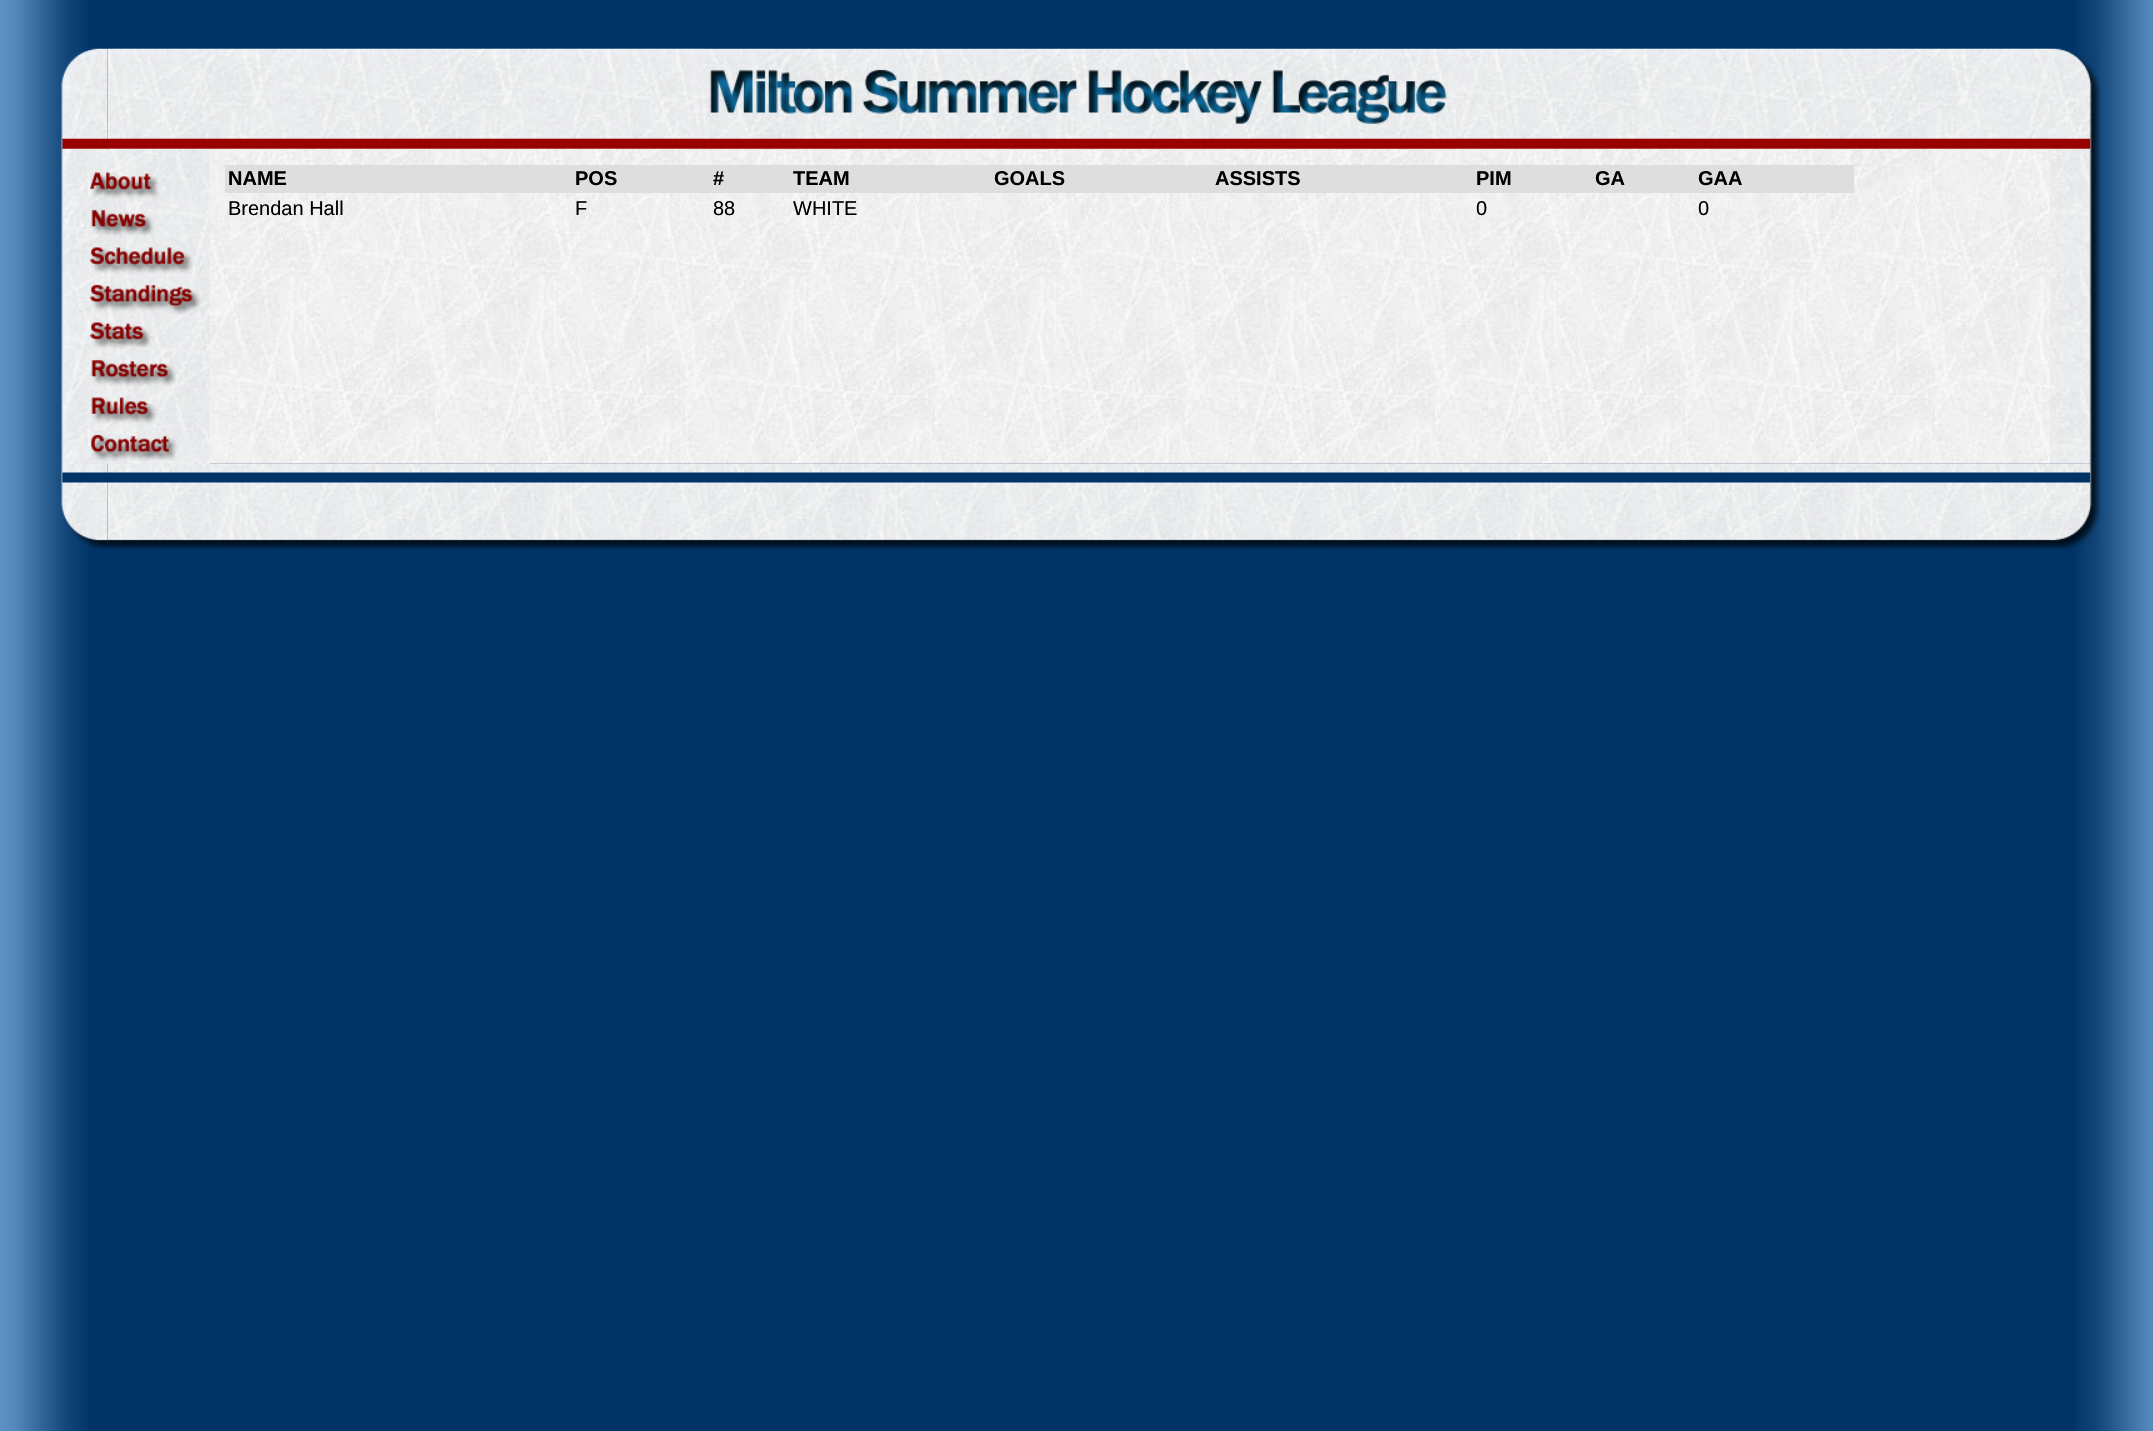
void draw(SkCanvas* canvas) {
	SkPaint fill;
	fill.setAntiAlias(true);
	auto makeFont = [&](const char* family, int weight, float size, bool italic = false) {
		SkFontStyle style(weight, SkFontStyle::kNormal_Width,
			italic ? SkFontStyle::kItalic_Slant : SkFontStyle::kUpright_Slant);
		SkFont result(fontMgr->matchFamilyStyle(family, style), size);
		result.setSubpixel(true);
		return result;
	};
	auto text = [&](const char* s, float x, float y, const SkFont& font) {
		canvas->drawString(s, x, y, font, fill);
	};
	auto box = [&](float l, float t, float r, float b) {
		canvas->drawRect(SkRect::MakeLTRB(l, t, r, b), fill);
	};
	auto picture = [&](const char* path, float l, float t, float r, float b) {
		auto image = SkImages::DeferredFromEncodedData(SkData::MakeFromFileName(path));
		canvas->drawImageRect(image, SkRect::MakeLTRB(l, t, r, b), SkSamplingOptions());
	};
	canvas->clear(0xFF003366);
	picture("image0.png", 2076, 0, 2153, 1431);
	picture("image1.png", 0, 0, 88, 1431);
	picture("image3.png", 107, 48, 2050, 150);
	picture("image2.png", 61, 48, 108, 150);
	picture("image4.png", 702, 48, 1457, 150);
	picture("image5.png", 2050, 48, 2101, 150);
	picture("image6.png", 60, 150, 2050, 464);
	picture("image7.png", 60, 150, 210, 464);
	picture("image8.png", 61, 150, 210, 201);
	picture("image9.png", 62, 201, 210, 239);
	picture("image10.png", 61, 239, 210, 276);
	picture("image11.png", 61, 276, 210, 314);
	picture("image12.png", 62, 313, 210, 351);
	picture("image13.png", 63, 351, 210, 389);
	picture("image14.png", 62, 389, 210, 426);
	picture("image18.png", 107, 463, 2050, 550);
	picture("image15.png", 60, 426, 210, 464);
	fill.setColor(0xFFDEDEDE);
	box(225, 165, 1854, 193);
	picture("image16.png", 2050, 150, 2101, 464);
	picture("image17.png", 61, 464, 108, 550);
	picture("image19.png", 2050, 463, 2101, 550);
	auto font1 = makeFont("Liberation Sans", 700, 20);
	fill.setColor(0xFF000000);
	text("NAME", 228, 185, font1);
	text("POS", 575, 185, font1);
	text("#", 713, 185, font1);
	text("TEAM", 793, 185, font1);
	text("GOALS", 994, 185, font1);
	text("ASSISTS", 1215, 185, font1);
	text("PIM", 1476, 185, font1);
	text("GA", 1595, 185, font1);
	text("GAA", 1698, 185, font1);
	auto font2 = makeFont("Liberation Sans", 400, 20);
	text("Brendan Hall", 228, 215, font2);
	text("F", 575, 215, font2);
	text("88", 713, 215, font2);
	text("WHITE", 793, 215, font2);
	text("0", 1476, 215, font2);
	text("0", 1698, 215, font2);
}
